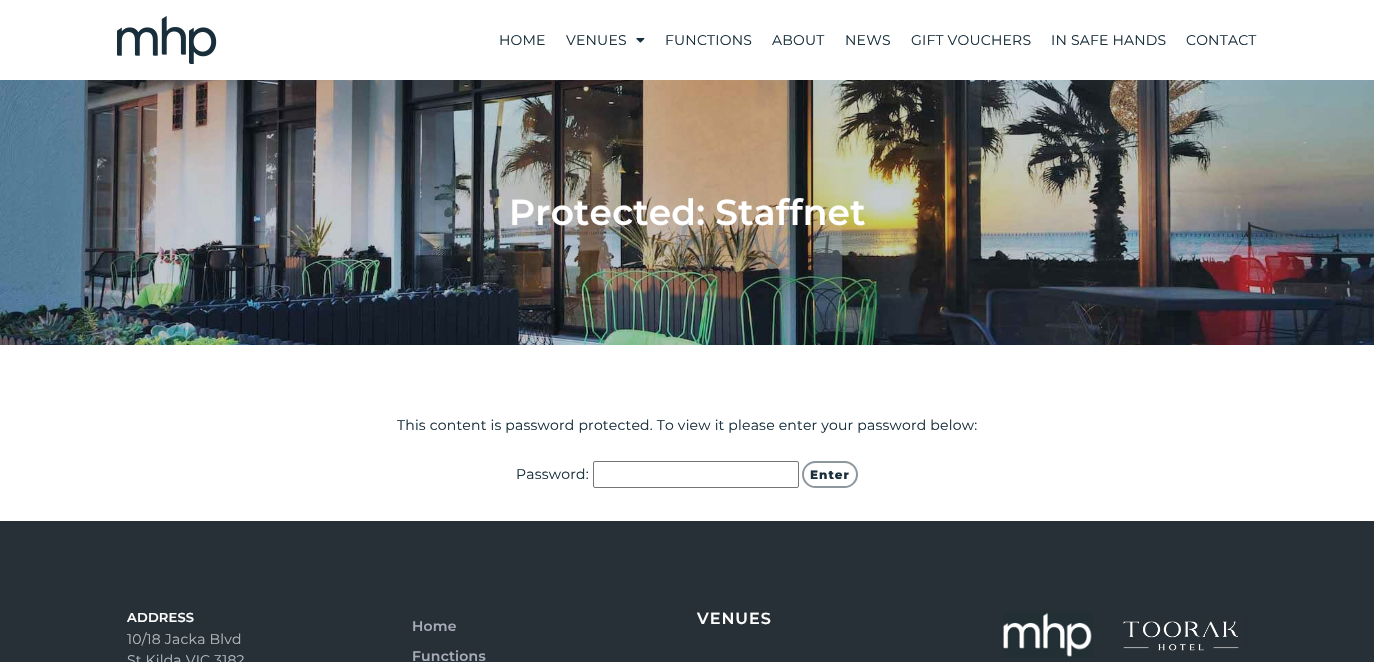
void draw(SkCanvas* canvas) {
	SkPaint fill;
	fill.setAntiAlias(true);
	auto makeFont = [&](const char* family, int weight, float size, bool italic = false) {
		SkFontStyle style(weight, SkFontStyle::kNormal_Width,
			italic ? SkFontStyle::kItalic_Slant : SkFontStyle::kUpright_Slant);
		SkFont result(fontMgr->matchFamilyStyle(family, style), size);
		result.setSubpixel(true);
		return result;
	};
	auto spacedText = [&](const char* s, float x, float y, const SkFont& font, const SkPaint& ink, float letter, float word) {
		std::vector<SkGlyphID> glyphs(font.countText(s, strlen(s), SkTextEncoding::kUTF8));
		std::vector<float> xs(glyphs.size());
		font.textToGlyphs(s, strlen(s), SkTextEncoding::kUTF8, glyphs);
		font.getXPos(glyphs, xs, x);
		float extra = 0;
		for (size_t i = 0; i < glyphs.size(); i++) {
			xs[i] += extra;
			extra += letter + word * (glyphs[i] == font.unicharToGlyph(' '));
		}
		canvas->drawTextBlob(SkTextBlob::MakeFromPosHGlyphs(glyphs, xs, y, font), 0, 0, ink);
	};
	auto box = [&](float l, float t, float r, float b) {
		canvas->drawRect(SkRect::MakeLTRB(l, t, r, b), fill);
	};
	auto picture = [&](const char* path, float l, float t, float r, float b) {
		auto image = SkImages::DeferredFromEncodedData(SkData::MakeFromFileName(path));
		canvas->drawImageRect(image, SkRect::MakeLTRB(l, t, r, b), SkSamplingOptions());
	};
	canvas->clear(0xFFFFFFFF);
	picture("image0.png", 117, 16, 217, 64);
	picture("image1.png", 636, 38, 645, 43);
	picture("image2.png", 0, 80, 1374, 345);
	fill.setStyle(SkPaint::kStroke_Style);
	fill.setStrokeWidth(1);
	fill.setColor(0xFF767676);
	canvas->drawRoundRect(SkRect::MakeLTRB(593.5f, 461.5f, 798.5f, 487.5f), 1.5f, 1.5f, fill);
	fill.setStrokeWidth(2);
	fill.setColor(0xFF8C979E);
	canvas->drawRoundRect(SkRect::MakeLTRB(803, 462, 857, 487), 12.5f, 12.5f, fill);
	fill.setStyle(SkPaint::kFill_Style);
	fill.setColor(0xFF273036);
	box(0, 521, 1374, 662);
	picture("image3.png", 1003, 611, 1093, 658);
	picture("image4.png", 1123, 612, 1247, 651);
	auto font1 = makeFont("Montserrat", 400, 14);
	fill.setColor(0xFF192F3C);
	spacedText("HOME", 499, 45, font1, fill, 0.2f, 0);
	spacedText("VENUES", 566, 45, font1, fill, 0.2f, 0);
	spacedText("FUNCTIONS", 665, 45, font1, fill, 0.2f, 0);
	spacedText("ABOUT", 772, 45, font1, fill, 0.2f, 0);
	spacedText("NEWS", 845, 45, font1, fill, 0.2f, 0);
	spacedText("GIFT VOUCHERS", 911, 45, font1, fill, 0.2f, 0);
	spacedText("IN SAFE HANDS", 1051, 45, font1, fill, 0.2f, 0);
	spacedText("CONTACT", 1186, 45, font1, fill, 0.2f, 0);
	auto font2 = makeFont("Montserrat", 600, 36);
	fill.setColor(0xFFFFFFFF);
	spacedText("Protected: Staffnet", 509, 225, font2, fill, 0.2f, 0);
	fill.setColor(0xFF192F3C);
	spacedText("This content is password protected. To view it please enter your password below:", 397, 430, font1, fill, 0.2f, 0);
	spacedText("Password:", 516, 479, font1, fill, 0.2f, 0);
	auto font3 = makeFont("Montserrat", 800, 12);
	spacedText("Enter", 810, 479, font3, fill, 1, 0);
	auto font4 = makeFont("Montserrat", 600, 13);
	fill.setColor(0xFFFFFFFF);
	spacedText("ADDRESS", 127, 622, font4, fill, 0.2f, 0);
	fill.setColor(0xFFB4B9BD);
	spacedText("10/18 Jacka Blvd", 127, 644, font1, fill, 0.2f, 0);
	spacedText("St Kilda VIC 3182", 127, 665, font1, fill, 0.2f, 0);
	auto font5 = makeFont("Montserrat", 600, 16);
	fill.setColor(0xFFFFFFFF);
	spacedText("VENUES", 697, 624, font5, fill, 1, 0);
	auto font6 = makeFont("Montserrat", 600, 14);
	fill.setColor(0xFFA8ACB9);
	spacedText("Home", 412, 631, font6, fill, 0.2f, 0);
	spacedText("Functions", 412, 661, font6, fill, 0.2f, 0);
}
